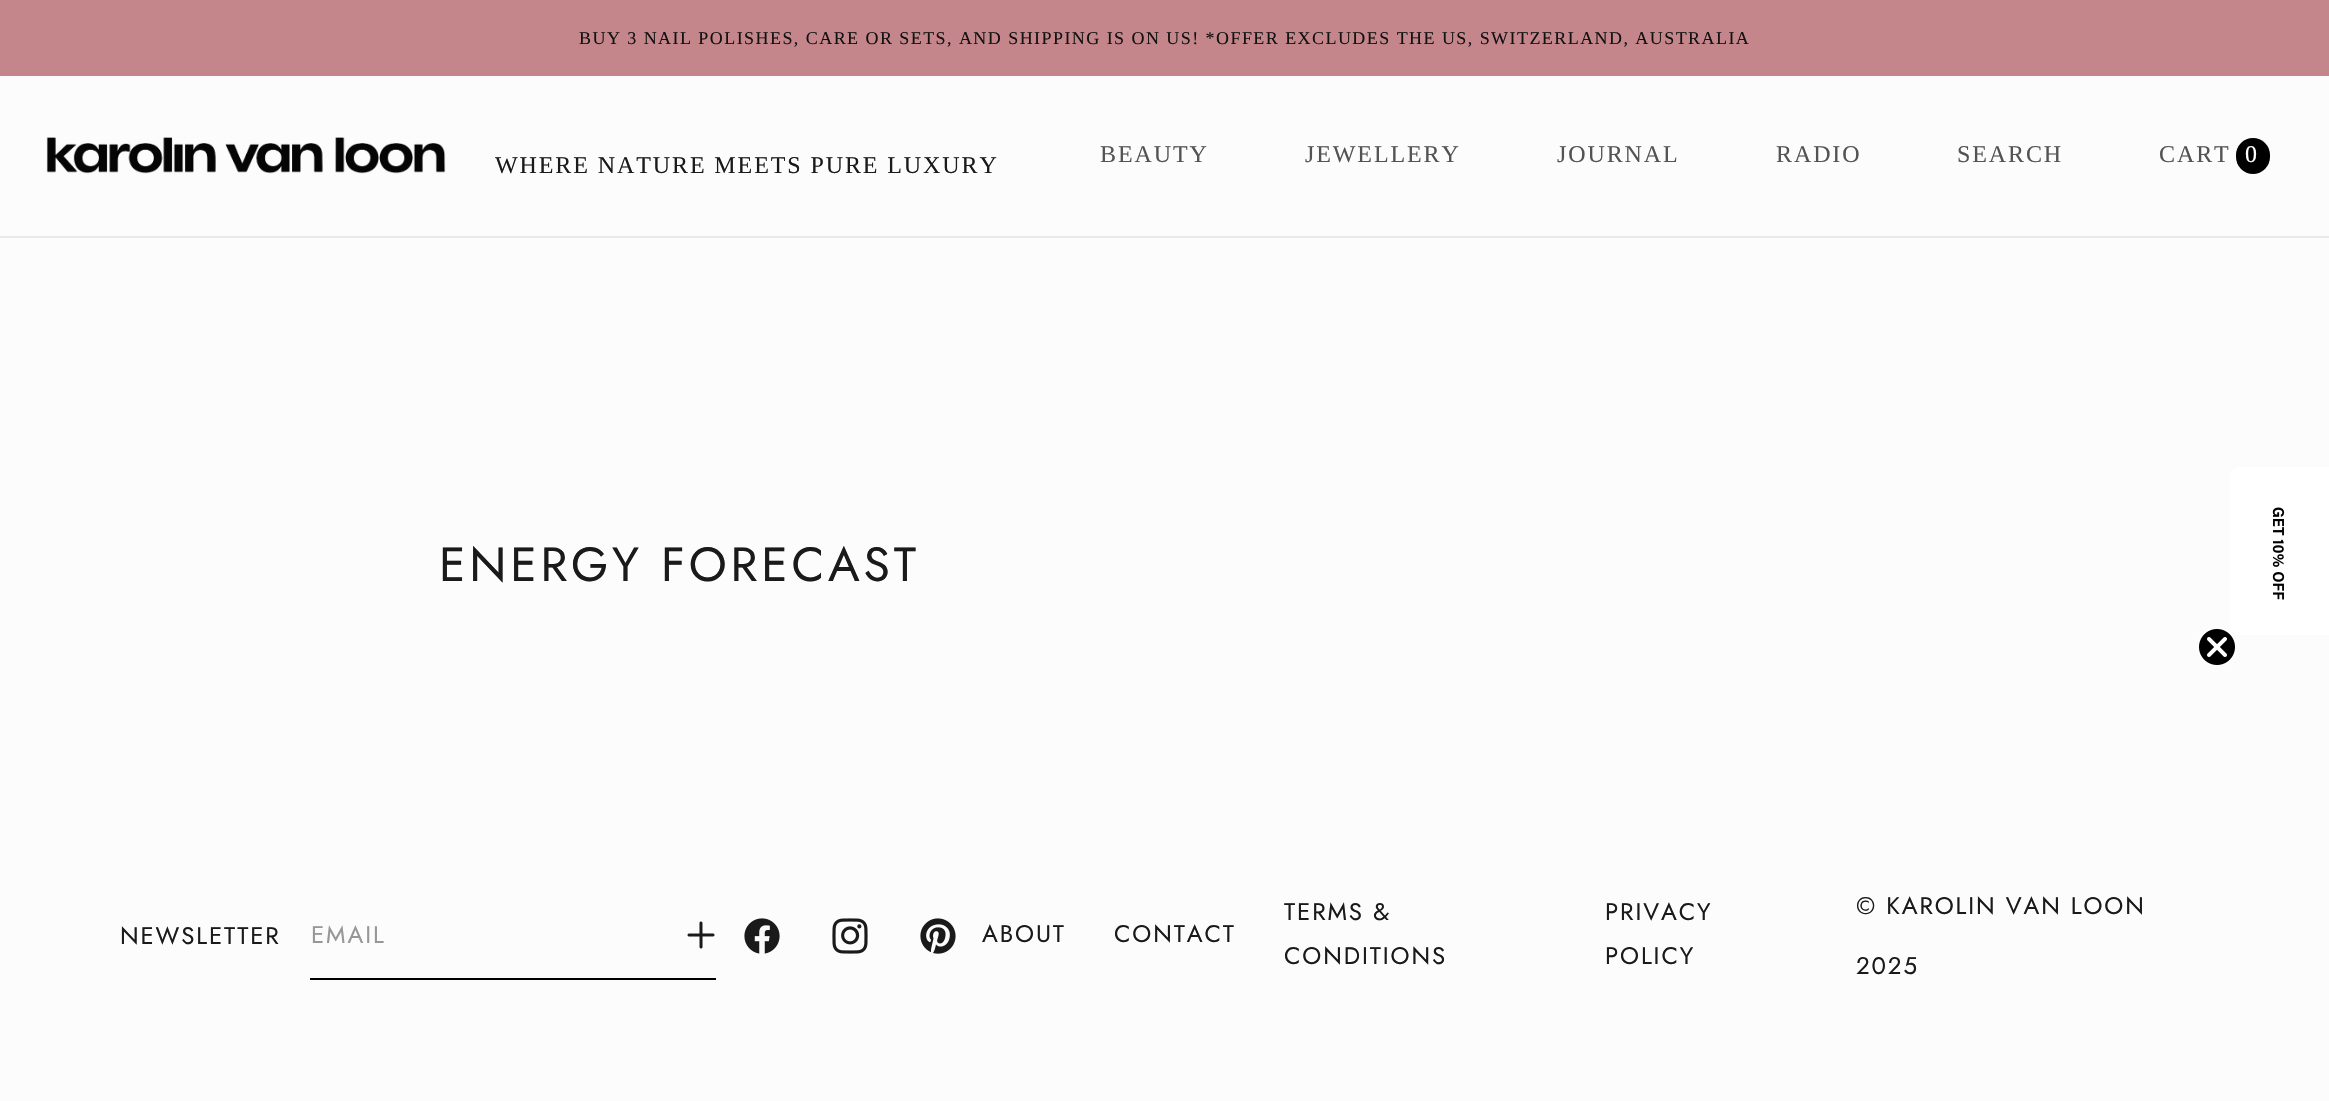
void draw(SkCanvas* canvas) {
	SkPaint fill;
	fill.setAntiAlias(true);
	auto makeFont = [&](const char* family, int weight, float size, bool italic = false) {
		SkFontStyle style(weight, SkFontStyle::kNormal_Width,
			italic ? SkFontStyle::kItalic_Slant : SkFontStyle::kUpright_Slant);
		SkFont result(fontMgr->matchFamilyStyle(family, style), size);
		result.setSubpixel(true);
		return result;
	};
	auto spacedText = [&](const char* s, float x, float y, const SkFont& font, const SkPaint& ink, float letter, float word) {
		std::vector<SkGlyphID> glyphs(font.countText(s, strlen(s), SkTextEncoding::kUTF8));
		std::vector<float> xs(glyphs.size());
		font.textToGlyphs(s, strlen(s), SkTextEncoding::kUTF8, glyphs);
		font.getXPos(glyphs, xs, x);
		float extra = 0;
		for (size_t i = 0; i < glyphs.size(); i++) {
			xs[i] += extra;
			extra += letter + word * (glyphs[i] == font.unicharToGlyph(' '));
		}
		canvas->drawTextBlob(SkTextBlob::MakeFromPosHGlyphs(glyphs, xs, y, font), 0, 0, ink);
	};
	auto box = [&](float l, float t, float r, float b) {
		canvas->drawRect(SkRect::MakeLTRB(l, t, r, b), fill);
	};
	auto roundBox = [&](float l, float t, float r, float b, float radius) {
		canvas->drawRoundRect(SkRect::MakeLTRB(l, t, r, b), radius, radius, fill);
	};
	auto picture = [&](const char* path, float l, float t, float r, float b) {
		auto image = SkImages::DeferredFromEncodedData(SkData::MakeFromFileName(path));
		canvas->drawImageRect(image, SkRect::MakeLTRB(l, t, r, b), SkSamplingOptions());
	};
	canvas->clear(0xFFFBFCFB);
	fill.setColor(0xFFC4858B);
	box(0, 0, 2329, 76);
	fill.setColor(0xFFE9EAE9);
	box(0, 236, 2329, 238);
	fill.setColor(0xFF000000);
	roundBox(2236, 138, 2270, 174, 17);
	picture("image0.png", 46, 137, 446, 174);
	fill.setColor(0xFFFFFFFF);
	canvas->drawPath(SkPathBuilder().moveTo(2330, 467).lineTo(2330, 635).lineTo(2238, 635).cubicTo(2234, 635, 2230, 631, 2230, 627).lineTo(2230, 475).cubicTo(2230, 471, 2234, 467, 2238, 467).close().detach(), fill);
	picture("image1.png", 2272, 507, 2285, 600);
	picture("image2.png", 2199, 629, 2235, 665);
	picture("image3.png", 687, 921, 715, 949);
	fill.setColor(0xFF000000);
	box(310, 978, 716, 980);
	picture("image4.png", 744, 918, 780, 954);
	picture("image5.png", 832, 918, 868, 954);
	picture("image6.png", 920, 918, 956, 954);
	auto font1 = makeFont("Liberation Serif", 400, 18);
	fill.setColor(0xFF121212);
	spacedText("BUY 3 NAIL POLISHES, CARE OR SETS, AND SHIPPING IS ON US! *OFFER EXCLUDES THE US, SWITZERLAND, AUSTRALIA", 579, 44, font1, fill, 1.44f, 0);
	auto font2 = makeFont("Liberation Serif", 400, 24);
	fill.setColor(0xFF525352);
	spacedText("BEAUTY", 1100, 162, font2, fill, 1.9f, 0);
	spacedText("JEWELLERY", 1305, 162, font2, fill, 1.9f, 0);
	spacedText("JOURNAL", 1557, 162, font2, fill, 1.9f, 0);
	spacedText("RADIO", 1776, 162, font2, fill, 1.9f, 0);
	spacedText("SEARCH", 1957, 162, font2, fill, 1.9f, 0);
	spacedText("CART", 2159, 162, font2, fill, 1.9f, 0);
	fill.setColor(0xFFFFFFFF);
	spacedText("0", 2245, 162, font2, fill, 1.9f, 0);
	fill.setColor(0xFF1A1A1A);
	spacedText("WHERE NATURE MEETS PURE LUXURY", 495, 173, font2, fill, 1.9f, 0);
	auto font3 = makeFont("Jost", 400, 48);
	spacedText("ENERGY FORECAST", 439, 581, font3, fill, 3.8f, 0);
	auto font4 = makeFont("Jost", 400, 24);
	spacedText("NEWSLETTER", 120, 944, font4, fill, 1.9f, 0);
	fill.setColor(0xFF979797);
	spacedText("EMAIL", 311, 943, font4, fill, 1.9f, 0);
	fill.setColor(0xFF1A1A1A);
	spacedText("ABOUT", 982, 942, font4, fill, 1.9f, 0);
	spacedText("CONTACT", 1114, 942, font4, fill, 1.9f, 0);
	spacedText("TERMS &", 1284, 920, font4, fill, 1.9f, 0);
	spacedText("CONDITIONS", 1284, 964, font4, fill, 1.9f, 0);
	spacedText("PRIVACY", 1605, 920, font4, fill, 1.9f, 0);
	spacedText("POLICY", 1605, 964, font4, fill, 1.9f, 0);
	spacedText("© KAROLIN VAN LOON", 1856, 914, font4, fill, 1.9f, 0);
	spacedText("2025", 1856, 974, font4, fill, 1.9f, 0);
}
